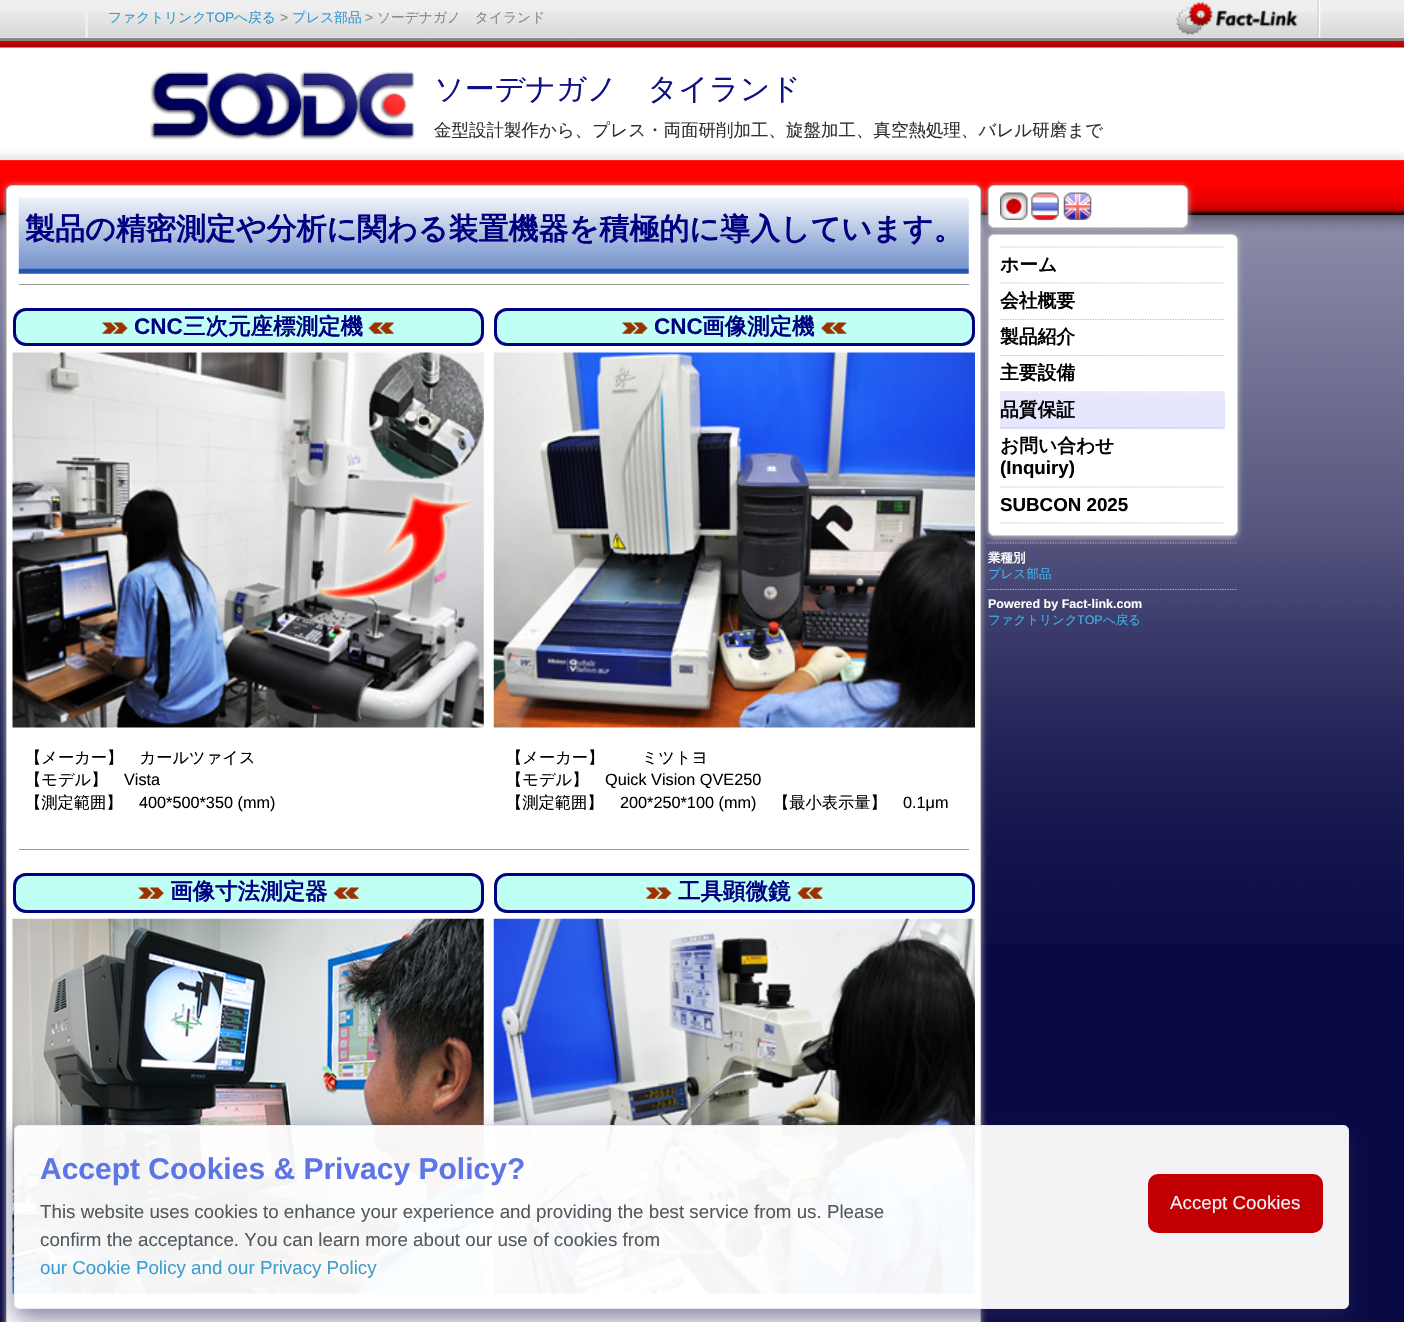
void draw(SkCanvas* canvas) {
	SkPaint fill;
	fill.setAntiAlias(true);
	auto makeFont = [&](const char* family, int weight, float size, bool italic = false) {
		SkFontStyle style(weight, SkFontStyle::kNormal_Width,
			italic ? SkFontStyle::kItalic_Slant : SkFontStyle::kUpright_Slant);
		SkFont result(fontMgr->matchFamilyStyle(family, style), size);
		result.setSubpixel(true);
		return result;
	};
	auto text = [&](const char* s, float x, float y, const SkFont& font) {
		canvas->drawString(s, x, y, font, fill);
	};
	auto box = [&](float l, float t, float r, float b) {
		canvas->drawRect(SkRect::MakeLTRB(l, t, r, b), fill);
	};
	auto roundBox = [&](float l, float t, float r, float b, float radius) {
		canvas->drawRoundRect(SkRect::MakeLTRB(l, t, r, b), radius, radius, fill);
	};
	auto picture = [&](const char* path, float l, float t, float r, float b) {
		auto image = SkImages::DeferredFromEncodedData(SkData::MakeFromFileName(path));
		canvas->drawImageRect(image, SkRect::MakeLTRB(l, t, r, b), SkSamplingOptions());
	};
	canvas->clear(0xFF080844);
	picture("image0.png", 0, 41, 1404, 944);
	fill.setColor(0xFFEEEEEE);
	box(0, 0, 1404, 12);
	picture("image1.png", 0, 12, 1404, 38);
	fill.setColor(0xFF888888);
	box(0, 38, 1404, 41);
	fill.setColor(0xE3EFEFEF);
	box(85, 12, 88, 38);
	picture("image2.png", 1176, 2, 1298, 35);
	picture("image3.png", 1317, 0, 1321, 38);
	picture("image4.png", 150, 71, 415, 140);
	fill.setColor(0xFFBBBBBB);
	fill.setMaskFilter(SkMaskFilter::MakeBlur(kNormal_SkBlurStyle, 3));
	canvas->drawRoundRect(SkRect::MakeLTRB(6, 186, 981, 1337), 6, 6, fill);
	fill.setMaskFilter(nullptr);
	fill.setColor(0xFFFFFFFF);
	canvas->drawRoundRect(SkRect::MakeLTRB(6.5f, 185.5f, 980.5f, 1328.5f), 5.5f, 5.5f, fill);
	fill.setStyle(SkPaint::kStroke_Style);
	fill.setStrokeWidth(1);
	fill.setColor(0xFFCCCCCC);
	canvas->drawRoundRect(SkRect::MakeLTRB(6.5f, 185.5f, 980.5f, 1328.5f), 5.5f, 5.5f, fill);
	picture("image5.png", 18, 197, 969, 274);
	fill.setStyle(SkPaint::kFill_Style);
	fill.setColor(0xFF999999);
	box(19, 284, 969, 285);
	fill.setColor(0xFFBFFFF4);
	canvas->drawRoundRect(SkRect::MakeLTRB(14.5f, 309.5f, 482.5f, 344.5f), 11.5f, 11.5f, fill);
	fill.setStyle(SkPaint::kStroke_Style);
	fill.setStrokeWidth(3);
	fill.setColor(0xFF000080);
	canvas->drawRoundRect(SkRect::MakeLTRB(14.5f, 309.5f, 482.5f, 344.5f), 11.5f, 11.5f, fill);
	picture("image6.png", 102, 322, 128, 334);
	picture("image7.png", 368, 322, 394, 334);
	picture("image8.png", 12, 352, 484, 728);
	fill.setStyle(SkPaint::kFill_Style);
	fill.setColor(0xFFBFFFF4);
	canvas->drawRoundRect(SkRect::MakeLTRB(495.5f, 309.5f, 973.5f, 344.5f), 11.5f, 11.5f, fill);
	fill.setStyle(SkPaint::kStroke_Style);
	fill.setColor(0xFF000080);
	canvas->drawRoundRect(SkRect::MakeLTRB(495.5f, 309.5f, 973.5f, 344.5f), 11.5f, 11.5f, fill);
	picture("image6.png", 622, 322, 648, 334);
	picture("image9.png", 821, 322, 847, 334);
	picture("image10.png", 493, 352, 975, 728);
	fill.setStyle(SkPaint::kFill_Style);
	fill.setColor(0xFF999999);
	box(19, 849, 969, 850);
	fill.setColor(0xFFBFFFF4);
	canvas->drawRoundRect(SkRect::MakeLTRB(14.5f, 874.5f, 482.5f, 911.5f), 11.5f, 11.5f, fill);
	fill.setStyle(SkPaint::kStroke_Style);
	fill.setColor(0xFF000080);
	canvas->drawRoundRect(SkRect::MakeLTRB(14.5f, 874.5f, 482.5f, 911.5f), 11.5f, 11.5f, fill);
	picture("image11.png", 138, 887, 164, 899);
	picture("image12.png", 333, 887, 359, 899);
	picture("image13.png", 12, 918, 484, 1294);
	fill.setStyle(SkPaint::kFill_Style);
	fill.setColor(0xFFBFFFF4);
	canvas->drawRoundRect(SkRect::MakeLTRB(495.5f, 874.5f, 973.5f, 911.5f), 11.5f, 11.5f, fill);
	fill.setStyle(SkPaint::kStroke_Style);
	fill.setColor(0xFF000080);
	canvas->drawRoundRect(SkRect::MakeLTRB(495.5f, 874.5f, 973.5f, 911.5f), 11.5f, 11.5f, fill);
	picture("image14.png", 646, 887, 672, 899);
	picture("image15.png", 797, 887, 823, 899);
	picture("image16.png", 493, 918, 975, 1294);
	fill.setStyle(SkPaint::kFill_Style);
	fill.setColor(0xFFBBBBBB);
	fill.setMaskFilter(SkMaskFilter::MakeBlur(kNormal_SkBlurStyle, 3));
	canvas->drawRoundRect(SkRect::MakeLTRB(988, 186, 1188, 229), 6, 6, fill);
	fill.setMaskFilter(nullptr);
	fill.setColor(0xFFFFFFFF);
	canvas->drawRoundRect(SkRect::MakeLTRB(988.5f, 185.5f, 1187.5f, 227.5f), 5.5f, 5.5f, fill);
	fill.setStyle(SkPaint::kStroke_Style);
	fill.setStrokeWidth(1);
	fill.setColor(0xFFCCCCCC);
	canvas->drawRoundRect(SkRect::MakeLTRB(988.5f, 185.5f, 1187.5f, 227.5f), 5.5f, 5.5f, fill);
	picture("image17.png", 1000, 192, 1028, 220);
	picture("image18.png", 1031, 192, 1059, 220);
	picture("image19.png", 1063, 192, 1092, 220);
	fill.setStyle(SkPaint::kFill_Style);
	fill.setColor(0xFFBBBBBB);
	fill.setMaskFilter(SkMaskFilter::MakeBlur(kNormal_SkBlurStyle, 3));
	canvas->drawRoundRect(SkRect::MakeLTRB(988, 235, 1238, 538), 6, 6, fill);
	fill.setMaskFilter(nullptr);
	fill.setColor(0xFFFFFFFF);
	canvas->drawRoundRect(SkRect::MakeLTRB(988.5f, 234.5f, 1237.5f, 535.5f), 5.5f, 5.5f, fill);
	fill.setStyle(SkPaint::kStroke_Style);
	fill.setColor(0xFFCCCCCC);
	canvas->drawRoundRect(SkRect::MakeLTRB(988.5f, 234.5f, 1237.5f, 535.5f), 5.5f, 5.5f, fill);
	fill.setStrokeWidth(1.2f);
	fill.setColor(0xFFB3B5E3);
	fill.setPathEffect(SkDashPathEffect::Make({{1.25f, 1.25f}}, 0));
	canvas->drawPath(SkPathBuilder().moveTo(1000, 247).lineTo(1225, 247).detach(), fill);
	fill.setPathEffect(nullptr);
	fill.setPathEffect(SkDashPathEffect::Make({{1.25f, 1.25f}}, 0));
	canvas->drawPath(SkPathBuilder().moveTo(1000, 283).lineTo(1225, 283).detach(), fill);
	fill.setPathEffect(nullptr);
	fill.setPathEffect(SkDashPathEffect::Make({{1.25f, 1.25f}}, 0));
	canvas->drawPath(SkPathBuilder().moveTo(1000, 319.5f).lineTo(1225, 319.5f).detach(), fill);
	fill.setPathEffect(nullptr);
	fill.setPathEffect(SkDashPathEffect::Make({{1.25f, 1.25f}}, 0));
	canvas->drawPath(SkPathBuilder().moveTo(1000, 355.5f).lineTo(1225, 355.5f).detach(), fill);
	fill.setPathEffect(nullptr);
	fill.setPathEffect(SkDashPathEffect::Make({{1.25f, 1.25f}}, 0));
	canvas->drawPath(SkPathBuilder().moveTo(1000, 392).lineTo(1225, 392).detach(), fill);
	fill.setPathEffect(nullptr);
	fill.setStyle(SkPaint::kFill_Style);
	fill.setColor(0xFFE6E6FF);
	box(1000, 393, 1225, 429);
	fill.setStyle(SkPaint::kStroke_Style);
	fill.setColor(0xFFB3B5E3);
	fill.setPathEffect(SkDashPathEffect::Make({{1.25f, 1.25f}}, 0));
	canvas->drawPath(SkPathBuilder().moveTo(1000, 428).lineTo(1225, 428).detach(), fill);
	fill.setPathEffect(nullptr);
	fill.setPathEffect(SkDashPathEffect::Make({{1.25f, 1.25f}}, 0));
	canvas->drawPath(SkPathBuilder().moveTo(1000, 487).lineTo(1225, 487).detach(), fill);
	fill.setPathEffect(nullptr);
	fill.setPathEffect(SkDashPathEffect::Make({{1.25f, 1.25f}}, 0));
	canvas->drawPath(SkPathBuilder().moveTo(1000, 523).lineTo(1225, 523).detach(), fill);
	fill.setPathEffect(nullptr);
	fill.setColor(0xFFBDBDBD);
	fill.setPathEffect(SkDashPathEffect::Make({{1.25f, 1.25f}}, 0));
	canvas->drawPath(SkPathBuilder().moveTo(987.5f, 543).lineTo(1237.5f, 543).detach(), fill);
	fill.setPathEffect(nullptr);
	fill.setPathEffect(SkDashPathEffect::Make({{1.25f, 1.25f}}, 0));
	canvas->drawPath(SkPathBuilder().moveTo(987.5f, 589.5f).lineTo(1237.5f, 589.5f).detach(), fill);
	fill.setPathEffect(nullptr);
	canvas->save();
	canvas->clipPath(SkPathBuilder(SkPathFillType::kEvenOdd).moveTo(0, 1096).lineTo(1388, 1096).lineTo(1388, 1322).lineTo(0, 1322).close().moveTo(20, 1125).lineTo(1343, 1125).cubicTo(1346.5f, 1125, 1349, 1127.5f, 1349, 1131).lineTo(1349, 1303).cubicTo(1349, 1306.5f, 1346.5f, 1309, 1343, 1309).lineTo(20, 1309).cubicTo(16.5f, 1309, 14, 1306.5f, 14, 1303).lineTo(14, 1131).cubicTo(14, 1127.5f, 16.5f, 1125, 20, 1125).close().detach(), true);
	fill.setStyle(SkPaint::kFill_Style);
	fill.setColor(0x91282559);
	fill.setMaskFilter(SkMaskFilter::MakeBlur(kNormal_SkBlurStyle, 12.5f));
	canvas->drawRoundRect(SkRect::MakeLTRB(14, 1135, 1349, 1319), 6, 6, fill);
	fill.setMaskFilter(nullptr);
	canvas->restore();
	fill.setColor(0xF2FFFFFF);
	roundBox(14, 1125, 1349, 1309, 6);
	fill.setStyle(SkPaint::kStroke_Style);
	fill.setStrokeWidth(1);
	fill.setColor(0xF2E8EBF3);
	canvas->drawRoundRect(SkRect::MakeLTRB(14.5f, 1125.5f, 1348.5f, 1308.5f), 5.5f, 5.5f, fill);
	fill.setStyle(SkPaint::kFill_Style);
	fill.setColor(0xFFC20004);
	roundBox(1148, 1174, 1323, 1233, 10);
	auto font1 = makeFont("WenQuanYi Zen Hei", 500, 13.75f);
	fill.setColor(0xFF3399CC);
	text("ファクトリンク", 108, 22, font1);
	auto font2 = makeFont("Liberation Sans", 400, 13.75f);
	text("TOP", 206, 22, font2);
	text("へ戻る", 234, 22, font1);
	fill.setColor(0xFF888888);
	text(">", 280, 22, font2);
	fill.setColor(0xFF3399CC);
	text("プレス部品", 292, 22, font1);
	fill.setColor(0xFF888888);
	text(">", 365, 22, font2);
	text("ソーデナガノ　タイランド", 377, 22, font1);
	auto font3 = makeFont("WenQuanYi Zen Hei", 500, 30);
	fill.setColor(0xFF101087);
	text("ソーデナガノ　タイランド", 434, 99, font3);
	auto font4 = makeFont("WenQuanYi Zen Hei", 500, 17.5f);
	fill.setColor(0xFF303030);
	text("金型設計製作から、プレス・両面研削加工、旋盤加工、真空熱処理、バレル研磨まで", 434, 136, font4);
	auto font5 = makeFont("WenQuanYi Zen Hei", 700, 30);
	fill.setColor(0xFF000080);
	text("製品の精密測定や分析に関わる装置機器を積極的に導入しています。", 25, 239, font5);
	auto font6 = makeFont("Liberation Sans", 700, 22.5f);
	text("CNC", 134, 334, font6);
	auto font7 = makeFont("WenQuanYi Zen Hei", 700, 22.5f);
	text("三次元座標測定機", 183, 334, font7);
	auto font8 = makeFont("WenQuanYi Zen Hei", 500, 16.25f);
	fill.setColor(0xFF000000);
	text("【メーカー】　カールツァイス", 25, 763, font8);
	text("【モデル】", 25, 785, font8);
	auto font9 = makeFont("Liberation Sans", 400, 16.25f);
	text("Vista", 124, 785, font9);
	text("【測定範囲】", 25, 808, font8);
	text("400*500*350 (mm)", 139, 808, font9);
	fill.setColor(0xFF000080);
	text("CNC", 654, 334, font6);
	text("画像測定機", 702, 334, font7);
	fill.setColor(0xFF000000);
	text("【メーカー】　　 ミツトヨ", 506, 763, font8);
	text("【モデル】", 506, 785, font8);
	text("Quick Vision QVE250", 605, 785, font9);
	text("【測定範囲】", 506, 808, font8);
	text("200*250*100 (mm)", 620, 808, font9);
	text("【最小表示量】", 773, 808, font8);
	text("0.1μm", 903, 808, font9);
	fill.setColor(0xFF000080);
	text("画像寸法測定器", 170, 899, font7);
	text("工具顕微鏡", 678, 899, font7);
	auto font10 = makeFont("WenQuanYi Zen Hei", 700, 18.75f);
	fill.setColor(0xFF000000);
	text("ホーム", 1000, 271, font10);
	text("会社概要", 1000, 307, font10);
	text("製品紹介", 1000, 343, font10);
	text("主要設備", 1000, 379, font10);
	text("品質保証", 1000, 416, font10);
	text("お問い合わせ", 1000, 452, font10);
	auto font11 = makeFont("Liberation Sans", 700, 18.75f);
	text("(Inquiry)", 1000, 474, font11);
	text("SUBCON 2025", 1000, 511, font11);
	auto font12 = makeFont("WenQuanYi Zen Hei", 700, 12.5f);
	fill.setColor(0xFFFCFCFC);
	text("業種別", 988, 562, font12);
	auto font13 = makeFont("WenQuanYi Zen Hei", 500, 12.5f);
	fill.setColor(0xFF3CB4F0);
	text("プレス部品", 988, 578, font13);
	auto font14 = makeFont("Liberation Sans", 700, 12.5f);
	fill.setColor(0xFFFCFCFC);
	text("Powered by Fact-link.com", 988, 608, font14);
	fill.setColor(0xFF3CB4F0);
	text("ファクトリンク", 988, 624, font13);
	auto font15 = makeFont("Liberation Sans", 400, 12.5f);
	text("TOP", 1077, 624, font15);
	text("へ戻る", 1103, 624, font13);
	auto font16 = makeFont("Liberation Sans", 700, 30);
	fill.setColor(0xFF5E75E7);
	text("Accept Cookies & Privacy Policy?", 40, 1179, font16);
	auto font17 = makeFont("Liberation Sans", 400, 18.75f);
	fill.setColor(0xFF52595F);
	text("This website uses cookies to enhance your experience and providing the best service from us. Please", 40, 1218, font17);
	text("confirm the acceptance. You can learn more about our use of cookies from", 40, 1246, font17);
	fill.setColor(0xFF3D9ECE);
	text("our Cookie Policy and our Privacy Policy", 40, 1274, font17);
	fill.setColor(0xFFF2F2F5);
	text("Accept Cookies", 1170, 1209, font17);
}
